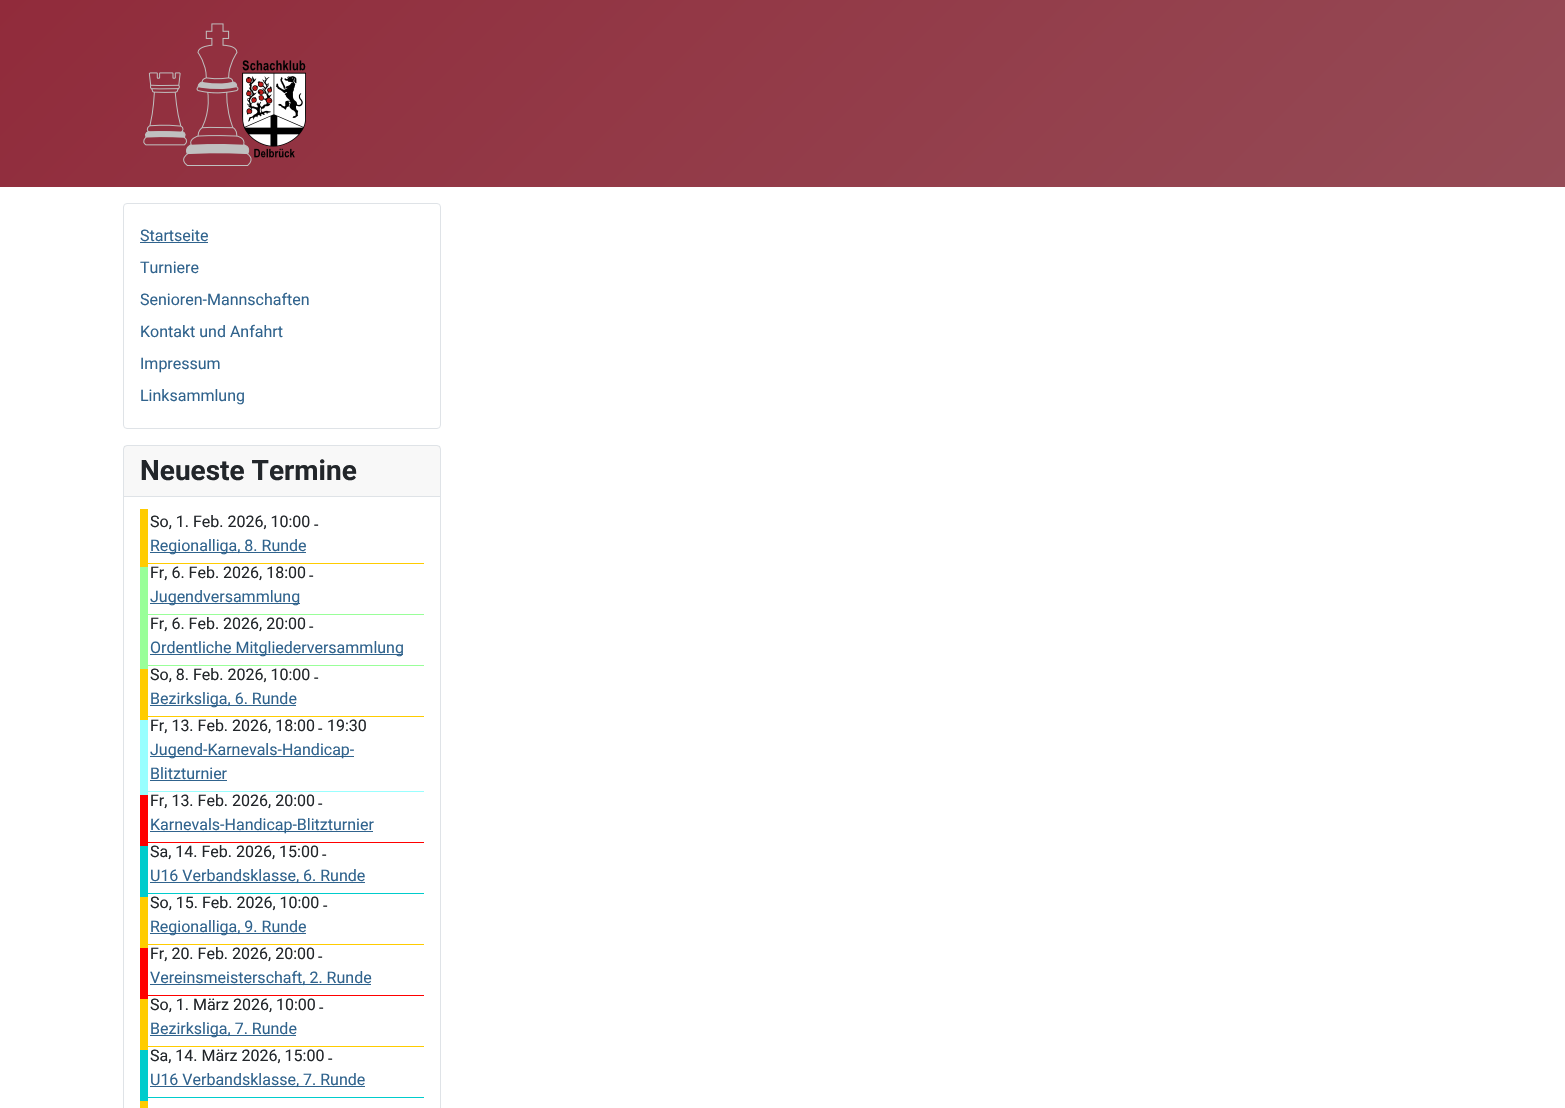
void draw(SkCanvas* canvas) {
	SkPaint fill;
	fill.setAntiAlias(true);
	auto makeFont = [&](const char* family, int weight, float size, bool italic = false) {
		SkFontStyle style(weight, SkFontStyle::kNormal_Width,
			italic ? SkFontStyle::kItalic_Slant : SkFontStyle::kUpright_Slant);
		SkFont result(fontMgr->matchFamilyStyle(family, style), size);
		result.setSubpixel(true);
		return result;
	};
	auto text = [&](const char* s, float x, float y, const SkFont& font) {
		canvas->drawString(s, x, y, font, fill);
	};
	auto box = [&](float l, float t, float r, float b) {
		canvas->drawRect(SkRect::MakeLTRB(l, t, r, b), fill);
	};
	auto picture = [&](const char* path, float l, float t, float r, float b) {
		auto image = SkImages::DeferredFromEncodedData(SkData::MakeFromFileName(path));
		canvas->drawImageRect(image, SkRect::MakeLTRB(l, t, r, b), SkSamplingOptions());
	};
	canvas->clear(0xFFFFFFFF);
	{
		const SkColor colors[] = {0xFF912B3B, 0xFF954B56};
		const float stops[] = {0, 1};
		const SkPoint ends[] = {{344, -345}, {1221, 532}};
		fill.setShader(SkGradientShader::MakeLinear(ends, colors, stops, 2, SkTileMode::kClamp));
		fill.setAlpha(255);
	}
	box(0, 0, 1565, 187);
	picture("image0.png", 143, 23, 306, 166);
	fill.setStyle(SkPaint::kStroke_Style);
	fill.setStrokeWidth(1);
	fill.setShader(nullptr);
	fill.setColor(0xFFDFE3E7);
	canvas->drawRoundRect(SkRect::MakeLTRB(123.5f, 203.5f, 440.5f, 428.5f), 3.5f, 3.5f, fill);
	fill.setStyle(SkPaint::kFill_Style);
	fill.setColor(0xFF30638D);
	box(140, 242, 208, 243);
	fill.setStyle(SkPaint::kStroke_Style);
	fill.setColor(0xFFDFE3E7);
	canvas->drawRoundRect(SkRect::MakeLTRB(123.5f, 445.5f, 440.5f, 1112.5f), 3.5f, 3.5f, fill);
	fill.setStyle(SkPaint::kFill_Style);
	fill.setColor(0x0822262A);
	box(124, 446, 440, 496);
	fill.setColor(0xFFDFE3E7);
	box(124, 496, 440, 497);
	fill.setColor(0xFFFFCC00);
	box(143, 563, 424, 564);
	fill.setColor(0xFF99FF99);
	box(143, 614, 424, 615);
	box(143, 665, 424, 666);
	fill.setColor(0xFFFFCC00);
	box(143, 716, 424, 717);
	fill.setColor(0xFF99FFFF);
	box(143, 791, 424, 792);
	fill.setColor(0xFFFF0000);
	box(143, 842, 424, 843);
	fill.setColor(0xFF00CCCC);
	box(143, 893, 424, 894);
	fill.setColor(0xFFFFCC00);
	box(143, 944, 424, 945);
	fill.setColor(0xFFFF0000);
	box(143, 995, 424, 996);
	fill.setColor(0xFFFFCC00);
	box(143, 1046, 424, 1047);
	fill.setColor(0xFF00CCCC);
	box(143, 1097, 424, 1098);
	fill.setColor(0xFFFFCC00);
	box(140, 1093, 148, 1108);
	fill.setColor(0xFF00CCCC);
	box(140, 1042, 148, 1101);
	fill.setColor(0xFFFFCC00);
	box(140, 991, 148, 1050);
	fill.setColor(0xFFFF0000);
	box(140, 940, 148, 999);
	fill.setColor(0xFFFFCC00);
	box(140, 889, 148, 948);
	fill.setColor(0xFF00CCCC);
	box(140, 838, 148, 897);
	fill.setColor(0xFFFF0000);
	box(140, 787, 148, 846);
	fill.setColor(0xFF99FFFF);
	box(140, 712, 148, 795);
	fill.setColor(0xFFFFCC00);
	box(140, 661, 148, 720);
	fill.setColor(0xFF99FF99);
	box(140, 559, 148, 669);
	fill.setColor(0xFFFFCC00);
	box(140, 509, 148, 567);
	fill.setColor(0xFF30638D);
	box(150, 552, 306, 553);
	box(150, 603, 300, 604);
	box(150, 654, 403, 655);
	box(150, 705, 296, 706);
	box(150, 756, 354, 757);
	box(150, 780, 227, 781);
	box(150, 831, 373, 832);
	box(150, 882, 365, 883);
	box(150, 933, 306, 934);
	box(150, 984, 371, 985);
	box(150, 1035, 296, 1036);
	box(150, 1086, 365, 1087);
	auto font1 = makeFont("Roboto", 400, 16);
	text("Startseite", 140, 241, font1);
	text("Turniere", 140, 273, font1);
	text("Senioren-Mannschaften", 140, 305, font1);
	text("Kontakt und Anfahrt", 140, 337, font1);
	text("Impressum", 140, 369, font1);
	text("Linksammlung", 140, 401, font1);
	auto font2 = makeFont("Roboto", 700, 28);
	fill.setColor(0xFF22262A);
	text("Neueste Termine", 140, 480, font2);
	text("So, 1. Feb. 2026, 10:00", 150, 527, font1);
	text("-", 314, 530, font1);
	fill.setColor(0xFF30638D);
	text("Regionalliga, 8. Runde", 150, 551, font1);
	fill.setColor(0xFF22262A);
	text("Fr, 6. Feb. 2026, 18:00", 150, 578, font1);
	text("-", 309, 581, font1);
	fill.setColor(0xFF30638D);
	text("Jugendversammlung", 150, 602, font1);
	fill.setColor(0xFF22262A);
	text("Fr, 6. Feb. 2026, 20:00", 150, 629, font1);
	text("-", 309, 632, font1);
	fill.setColor(0xFF30638D);
	text("Ordentliche Mitgliederversammlung", 150, 653, font1);
	fill.setColor(0xFF22262A);
	text("So, 8. Feb. 2026, 10:00", 150, 680, font1);
	text("-", 314, 683, font1);
	fill.setColor(0xFF30638D);
	text("Bezirksliga, 6. Runde", 150, 704, font1);
	fill.setColor(0xFF22262A);
	text("Fr, 13. Feb. 2026, 18:00", 150, 731, font1);
	text("-", 318, 734, font1);
	text("19:30", 327, 731, font1);
	fill.setColor(0xFF30638D);
	text("Jugend-Karnevals-Handicap-", 150, 755, font1);
	text("Blitzturnier", 150, 779, font1);
	fill.setColor(0xFF22262A);
	text("Fr, 13. Feb. 2026, 20:00", 150, 806, font1);
	text("-", 318, 809, font1);
	fill.setColor(0xFF30638D);
	text("Karnevals-Handicap-Blitzturnier", 150, 830, font1);
	fill.setColor(0xFF22262A);
	text("Sa, 14. Feb. 2026, 15:00", 150, 857, font1);
	text("-", 322, 860, font1);
	fill.setColor(0xFF30638D);
	text("U16 Verbandsklasse, 6. Runde", 150, 881, font1);
	fill.setColor(0xFF22262A);
	text("So, 15. Feb. 2026, 10:00", 150, 908, font1);
	text("-", 323, 911, font1);
	fill.setColor(0xFF30638D);
	text("Regionalliga, 9. Runde", 150, 932, font1);
	fill.setColor(0xFF22262A);
	text("Fr, 20. Feb. 2026, 20:00", 150, 959, font1);
	text("-", 318, 962, font1);
	fill.setColor(0xFF30638D);
	text("Vereinsmeisterschaft, 2. Runde", 150, 983, font1);
	fill.setColor(0xFF22262A);
	text("So, 1. März 2026, 10:00", 150, 1010, font1);
	text("-", 319, 1013, font1);
	fill.setColor(0xFF30638D);
	text("Bezirksliga, 7. Runde", 150, 1034, font1);
	fill.setColor(0xFF22262A);
	text("Sa, 14. März 2026, 15:00", 150, 1061, font1);
	text("-", 328, 1064, font1);
	fill.setColor(0xFF30638D);
	text("U16 Verbandsklasse, 7. Runde", 150, 1085, font1);
}
